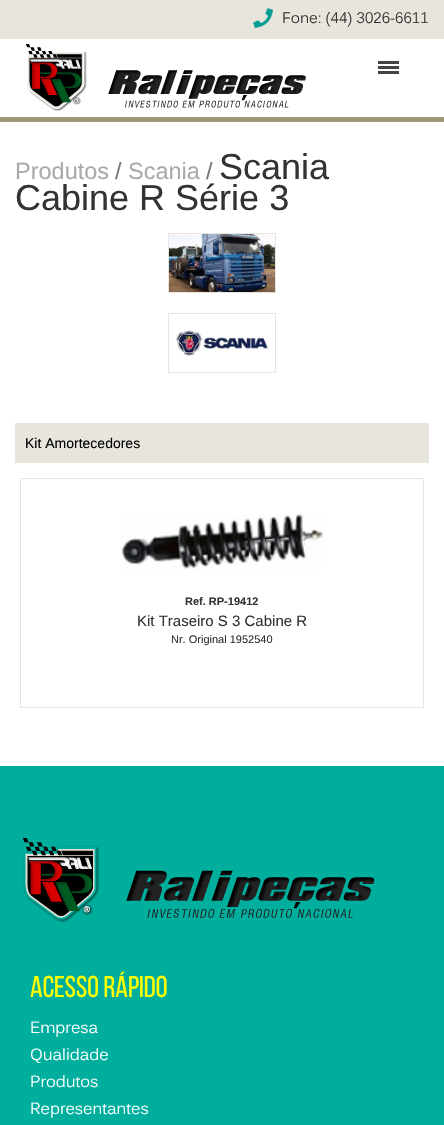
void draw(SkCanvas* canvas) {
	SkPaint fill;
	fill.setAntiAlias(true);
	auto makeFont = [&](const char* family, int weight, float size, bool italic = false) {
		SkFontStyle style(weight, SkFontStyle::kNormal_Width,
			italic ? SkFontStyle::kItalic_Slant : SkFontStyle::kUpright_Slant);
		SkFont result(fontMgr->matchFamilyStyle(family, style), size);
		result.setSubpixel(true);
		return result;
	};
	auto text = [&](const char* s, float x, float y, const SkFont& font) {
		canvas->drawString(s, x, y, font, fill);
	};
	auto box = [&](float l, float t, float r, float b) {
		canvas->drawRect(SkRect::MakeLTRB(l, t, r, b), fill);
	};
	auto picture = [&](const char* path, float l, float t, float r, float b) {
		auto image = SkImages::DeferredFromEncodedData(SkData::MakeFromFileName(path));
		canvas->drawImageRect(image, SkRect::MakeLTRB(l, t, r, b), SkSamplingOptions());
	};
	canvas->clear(0xFFFFFFFF);
	fill.setColor(0xFFE7E5DC);
	box(0, 0, 444, 39);
	picture("image0.png", 253, 8, 273, 28);
	fill.setColor(0xFFA09775);
	box(0, 117, 444, 122);
	picture("image1.png", 26, 44, 306, 111);
	picture("image2.png", 378, 61, 399, 74);
	picture("image3.png", 169, 234, 275, 292);
	fill.setStyle(SkPaint::kStroke_Style);
	fill.setStrokeWidth(1);
	fill.setColor(0xFFE7E5DC);
	canvas->drawRect(SkRect::MakeLTRB(168.5f, 233.5f, 275.5f, 292.5f), fill);
	picture("image4.png", 175, 330, 268, 356);
	canvas->drawRect(SkRect::MakeLTRB(168.5f, 313.5f, 275.5f, 372.5f), fill);
	fill.setStyle(SkPaint::kFill_Style);
	box(15, 423, 429, 463);
	fill.setStyle(SkPaint::kStroke_Style);
	canvas->drawRect(SkRect::MakeLTRB(20.5f, 478.5f, 423.5f, 707.5f), fill);
	picture("image5.png", 121, 514, 324, 570);
	fill.setStyle(SkPaint::kFill_Style);
	fill.setColor(0xFF00AE9D);
	box(0, 766, 444, 1125);
	picture("image6.png", 23, 838, 375, 923);
	auto font1 = makeFont("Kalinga", 400, 15);
	fill.setColor(0xFF333333);
	text("Fone: (44) 3026-6611", 282, 23, font1);
	auto font2 = makeFont("Liberation Sans", 400, 23.5f);
	fill.setColor(0xFFAAAAAA);
	text("Produtos", 15, 179, font2);
	fill.setColor(0xFF777777);
	text("/", 115, 179, font2);
	fill.setColor(0xFFAAAAAA);
	text("Scania", 128, 179, font2);
	fill.setColor(0xFF777777);
	text("/", 206, 179, font2);
	auto font3 = makeFont("Liberation Sans", 400, 36);
	fill.setColor(0xFF333333);
	text("Scania", 219, 179, font3);
	text("Cabine R Série 3", 15, 210, font3);
	auto font4 = makeFont("Liberation Sans", 400, 14);
	fill.setColor(0xFF000000);
	text("Kit Amortecedores", 25, 448, font4);
	auto font5 = makeFont("Liberation Sans", 700, 11);
	fill.setColor(0xFF333333);
	text("Ref. RP-19412", 185, 605, font5);
	auto font6 = makeFont("Liberation Sans", 400, 15);
	text("Kit Traseiro S 3 Cabine R", 137, 626, font6);
	auto font7 = makeFont("Liberation Sans", 400, 11);
	text("Nr. Original 1952540", 171, 643, font7);
	auto font8 = makeFont("Bebas Neue", 400, 30);
	fill.setColor(0xFFFFFF00);
	text("Acesso Rápido", 30, 997, font8);
	auto font9 = makeFont("Kalinga", 400, 16);
	fill.setColor(0xFFFFFFFF);
	text("Empresa", 30, 1033, font9);
	text("Qualidade", 30, 1060, font9);
	text("Produtos", 30, 1087, font9);
	text("Representantes", 30, 1114, font9);
}
